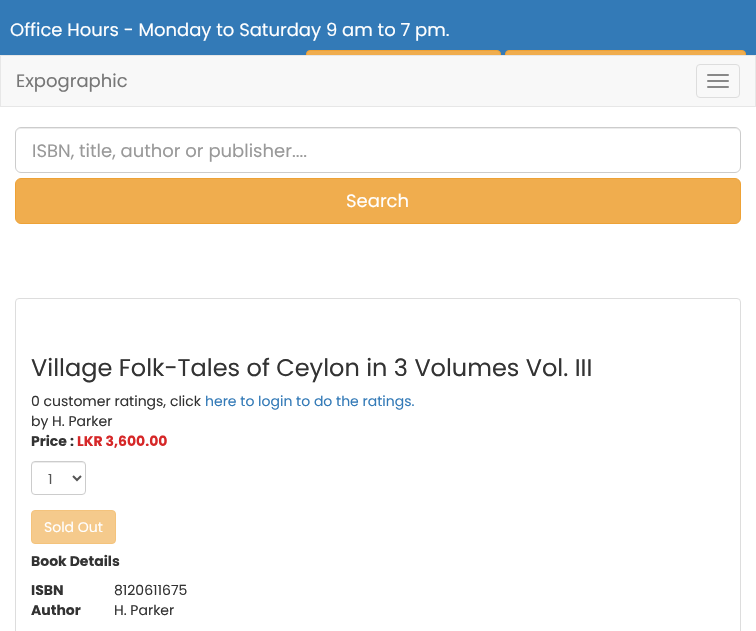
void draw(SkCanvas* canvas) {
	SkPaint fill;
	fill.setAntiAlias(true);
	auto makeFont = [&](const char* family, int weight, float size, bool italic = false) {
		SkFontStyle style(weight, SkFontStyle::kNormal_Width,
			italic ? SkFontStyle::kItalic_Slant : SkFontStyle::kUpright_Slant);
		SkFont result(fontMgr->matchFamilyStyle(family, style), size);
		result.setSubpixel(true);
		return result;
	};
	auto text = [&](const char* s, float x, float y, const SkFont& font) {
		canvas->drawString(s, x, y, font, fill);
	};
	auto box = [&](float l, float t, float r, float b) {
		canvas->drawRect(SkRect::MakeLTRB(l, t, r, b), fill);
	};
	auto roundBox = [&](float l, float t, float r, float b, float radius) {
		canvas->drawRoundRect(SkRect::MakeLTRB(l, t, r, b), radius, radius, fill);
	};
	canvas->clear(0xFFFFFFFF);
	fill.setColor(0xFF337AB7);
	box(0, 0, 756, 55);
	fill.setColor(0xFFF0AD4E);
	canvas->drawRoundRect(SkRect::MakeLTRB(306.5f, 50.5f, 500.5f, 83.5f), 3.5f, 3.5f, fill);
	fill.setStyle(SkPaint::kStroke_Style);
	fill.setStrokeWidth(1);
	fill.setColor(0xFFEEA236);
	canvas->drawRoundRect(SkRect::MakeLTRB(306.5f, 50.5f, 500.5f, 83.5f), 3.5f, 3.5f, fill);
	fill.setStyle(SkPaint::kFill_Style);
	fill.setColor(0xFFF0AD4E);
	canvas->drawRoundRect(SkRect::MakeLTRB(505.5f, 50.5f, 745.5f, 83.5f), 3.5f, 3.5f, fill);
	fill.setStyle(SkPaint::kStroke_Style);
	fill.setColor(0xFFEEA236);
	canvas->drawRoundRect(SkRect::MakeLTRB(505.5f, 50.5f, 745.5f, 83.5f), 3.5f, 3.5f, fill);
	fill.setStyle(SkPaint::kFill_Style);
	fill.setColor(0xFFF8F8F8);
	canvas->drawRect(SkRect::MakeLTRB(0.5f, 55.5f, 755.5f, 106.5f), fill);
	fill.setStyle(SkPaint::kStroke_Style);
	fill.setColor(0xFFE7E7E7);
	canvas->drawRect(SkRect::MakeLTRB(0.5f, 55.5f, 755.5f, 106.5f), fill);
	fill.setColor(0xFFDDDDDD);
	canvas->drawRoundRect(SkRect::MakeLTRB(696.5f, 64.5f, 739.5f, 97.5f), 3.5f, 3.5f, fill);
	fill.setStyle(SkPaint::kFill_Style);
	fill.setColor(0xFF888888);
	roundBox(707, 74, 729, 76, 1);
	roundBox(707, 80, 729, 82, 1);
	roundBox(707, 86, 729, 88, 1);
	fill.setColor(0xFFECECEC);
	canvas->drawPath(SkPathBuilder().moveTo(21, 129).lineTo(735, 129).cubicTo(738, 129, 740, 131, 740, 134).cubicTo(740, 131, 738, 128, 735, 128).lineTo(21, 128).cubicTo(18, 128, 16, 131, 16, 134).cubicTo(16, 131, 18, 129, 21, 129).close().detach(), fill);
	fill.setStyle(SkPaint::kStroke_Style);
	fill.setColor(0xFFCCCCCC);
	canvas->drawRoundRect(SkRect::MakeLTRB(15.5f, 127.5f, 740.5f, 172.5f), 5.5f, 5.5f, fill);
	fill.setStyle(SkPaint::kFill_Style);
	fill.setColor(0xFFF0AD4E);
	canvas->drawRoundRect(SkRect::MakeLTRB(15.5f, 178.5f, 740.5f, 223.5f), 5.5f, 5.5f, fill);
	fill.setStyle(SkPaint::kStroke_Style);
	fill.setColor(0xFFEEA236);
	canvas->drawRoundRect(SkRect::MakeLTRB(15.5f, 178.5f, 740.5f, 223.5f), 5.5f, 5.5f, fill);
	fill.setColor(0xFFDDDDDD);
	canvas->drawRoundRect(SkRect::MakeLTRB(15.5f, 298.5f, 740.5f, 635.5f), 3.5f, 3.5f, fill);
	fill.setStyle(SkPaint::kFill_Style);
	fill.setColor(0xFFECECEC);
	canvas->drawPath(SkPathBuilder().moveTo(35, 463).lineTo(82, 463).cubicTo(84, 463, 85, 464, 85, 466).cubicTo(85, 460, 79, 462, 74, 462).lineTo(43, 462).cubicTo(38, 462, 32, 460, 32, 466).cubicTo(32, 464, 33, 463, 35, 463).close().detach(), fill);
	fill.setStyle(SkPaint::kStroke_Style);
	fill.setColor(0xFFCCCCCC);
	canvas->drawRoundRect(SkRect::MakeLTRB(31.5f, 461.5f, 85.5f, 494.5f), 3.5f, 3.5f, fill);
	fill.setStrokeWidth(2);
	fill.setColor(0xFF555555);
	canvas->drawPath(SkPathBuilder().moveTo(73, 476).lineTo(77, 480).lineTo(81, 476).detach(), fill);
	fill.setStyle(SkPaint::kFill_Style);
	fill.setColor(0xFFF5CA8C);
	canvas->drawRoundRect(SkRect::MakeLTRB(31.5f, 510.5f, 115.5f, 543.5f), 3.5f, 3.5f, fill);
	fill.setStyle(SkPaint::kStroke_Style);
	fill.setStrokeWidth(1);
	fill.setColor(0xFFF4C37C);
	canvas->drawRoundRect(SkRect::MakeLTRB(31.5f, 510.5f, 115.5f, 543.5f), 3.5f, 3.5f, fill);
	auto font1 = makeFont("Poppins", 400, 18);
	fill.setStyle(SkPaint::kFill_Style);
	fill.setColor(0xFFFFFFFF);
	text("Office Hours - Monday to Saturday 9 am to 7 pm.", 10, 36, font1);
	fill.setColor(0xFF777777);
	text("Expographic", 16, 87, font1);
	fill.setColor(0xFF999999);
	text("ISBN, title, author or publisher....", 32, 157, font1);
	fill.setColor(0xFFFFFFFF);
	text("Search", 346, 207, font1);
	auto font2 = makeFont("Poppins", 400, 24);
	fill.setColor(0xFF333333);
	text("Village Folk-Tales of Ceylon in 3 Volumes Vol. III", 31, 376, font2);
	auto font3 = makeFont("Poppins", 400, 14);
	text("0 customer ratings, click", 31, 406, font3);
	fill.setColor(0xFF337AB7);
	text("here to login to do the ratings.", 205, 406, font3);
	fill.setColor(0xFF333333);
	text("by H. Parker", 31, 426, font3);
	auto font4 = makeFont("Poppins", 700, 14);
	text("Price :", 31, 446, font4);
	fill.setColor(0xFFD62728);
	text("LKR 3,600.00", 77, 446, font4);
	fill.setColor(0xFF555555);
	text("1", 48, 484, font3);
	fill.setColor(0xFFFFFFFF);
	text("Sold Out", 44, 532, font3);
	fill.setColor(0xFF333333);
	text("Book Details", 31, 566, font4);
	text("ISBN", 31, 595, font4);
	text("8120611675", 114, 595, font3);
	text("Author", 31, 615, font4);
	text("H. Parker", 114, 615, font3);
}
